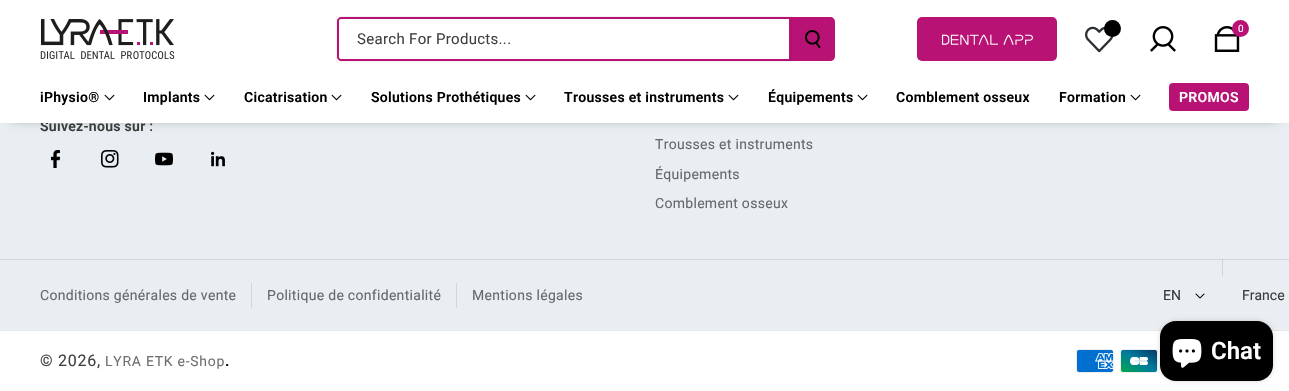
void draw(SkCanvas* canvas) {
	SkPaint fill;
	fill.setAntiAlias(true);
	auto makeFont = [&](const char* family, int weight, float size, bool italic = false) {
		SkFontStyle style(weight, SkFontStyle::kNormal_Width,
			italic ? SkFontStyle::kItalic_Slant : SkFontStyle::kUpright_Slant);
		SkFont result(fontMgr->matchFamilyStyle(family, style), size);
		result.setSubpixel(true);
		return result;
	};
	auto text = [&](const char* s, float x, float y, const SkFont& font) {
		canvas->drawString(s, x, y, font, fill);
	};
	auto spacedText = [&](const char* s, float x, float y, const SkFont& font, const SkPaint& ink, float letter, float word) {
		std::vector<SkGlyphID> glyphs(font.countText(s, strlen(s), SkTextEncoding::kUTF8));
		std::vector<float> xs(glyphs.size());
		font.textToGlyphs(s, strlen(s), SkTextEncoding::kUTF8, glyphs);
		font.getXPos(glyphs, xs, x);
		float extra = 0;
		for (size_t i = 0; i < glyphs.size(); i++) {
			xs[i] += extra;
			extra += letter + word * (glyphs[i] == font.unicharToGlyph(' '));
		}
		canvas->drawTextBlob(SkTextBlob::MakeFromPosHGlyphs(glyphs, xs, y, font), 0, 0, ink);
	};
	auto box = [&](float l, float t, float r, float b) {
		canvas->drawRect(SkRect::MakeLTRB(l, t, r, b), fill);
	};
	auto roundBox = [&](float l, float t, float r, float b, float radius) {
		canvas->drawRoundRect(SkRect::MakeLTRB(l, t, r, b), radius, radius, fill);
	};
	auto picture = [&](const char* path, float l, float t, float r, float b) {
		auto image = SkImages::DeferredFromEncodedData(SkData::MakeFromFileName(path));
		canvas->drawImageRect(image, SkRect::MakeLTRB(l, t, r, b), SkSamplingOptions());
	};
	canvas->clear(0xFFE8EEF1);
	fill.setColor(0x99000000);
	fill.setMaskFilter(SkMaskFilter::MakeBlur(kNormal_SkBlurStyle, 6));
	canvas->drawRect(SkRect::MakeLTRB(12, 18, 1277, 117), fill);
	fill.setMaskFilter(nullptr);
	fill.setColor(0xFFD1D6D9);
	box(1222, 259, 1223, 284);
	picture("image7.png", 50, 150, 61, 168);
	picture("image8.png", 101, 150, 119, 168);
	picture("image9.png", 155, 152, 173, 166);
	picture("image10.png", 211, 151, 225, 167);
	box(0, 259, 1289, 260);
	fill.setColor(0xFFBCC1C3);
	box(1222, 259, 1223, 260);
	fill.setColor(0xFFD1D6D9);
	box(251, 283, 252, 308);
	box(456, 283, 457, 308);
	picture("image11.png", 1195, 293, 1205, 299);
	fill.setColor(0xFFE8EEF1);
	roundBox(1221, 275, 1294, 315, 5);
	fill.setColor(0xFFFFFFFF);
	box(0, 331, 1289, 391);
	fill.setColor(0xFFE6E6E6);
	box(0, 330, 1289, 331);
	picture("image12.png", 1076, 349, 1114, 373);
	picture("image13.png", 1120, 349, 1158, 373);
	fill.setColor(0x26000000);
	fill.setMaskFilter(SkMaskFilter::MakeBlur(kNormal_SkBlurStyle, 2.5f));
	canvas->drawRoundRect(SkRect::MakeLTRB(1160, 321, 1273, 381), 16, 16, fill);
	fill.setMaskFilter(nullptr);
	fill.setColor(0xFF000000);
	roundBox(1160, 321, 1273, 381, 16);
	picture("image14.png", 1172, 339, 1202, 368);
	auto font1 = makeFont("Roboto", 600, 14);
	fill.setColor(0xFF3A3C3C);
	spacedText("Suivez-nous sur :", 40, 131, font1, fill, 0.3f, 0);
	fill.setColor(0xFFFFFFFF);
	box(0, 0, 1289, 123);
	fill.setColor(0xFFB81374);
	roundBox(917, 17, 1057, 61, 5);
	picture("image1.png", 941, 34, 1033, 45);
	canvas->drawPath(SkPathBuilder().moveTo(791, 17).lineTo(830, 17).cubicTo(833, 17, 835, 19, 835, 22).lineTo(835, 56).cubicTo(835, 59, 833, 61, 830, 61).lineTo(791, 61).close().detach(), fill);
	picture("image5.png", 805, 30, 821, 48);
	fill.setStyle(SkPaint::kStroke_Style);
	fill.setStrokeWidth(2);
	canvas->drawPath(SkPathBuilder().moveTo(341, 18).lineTo(790, 18).lineTo(790, 60).lineTo(341, 60).cubicTo(339.5f, 60, 338, 58.5f, 338, 57).lineTo(338, 21).cubicTo(338, 19.5f, 339.5f, 18, 341, 18).close().detach(), fill);
	fill.setStrokeWidth(1);
	fill.setColor(0x0D000000);
	canvas->drawRect(SkRect::MakeLTRB(336.5f, 16.5f, 791.5f, 61.5f), fill);
	picture("image6.png", 1130, 94, 1141, 101);
	fill.setStyle(SkPaint::kFill_Style);
	fill.setColor(0xFF000000);
	spacedText("Formation", 1059, 102, font1, fill, 0.3f, 0);
	picture("image6.png", 857, 94, 868, 101);
	spacedText("Équipements", 768, 102, font1, fill, 0.3f, 0);
	picture("image6.png", 728, 94, 739, 101);
	spacedText("Trousses et instruments", 564, 102, font1, fill, 0.3f, 0);
	picture("image6.png", 525, 94, 536, 101);
	spacedText("Solutions Prothétiques", 371, 102, font1, fill, 0.3f, 0);
	picture("image6.png", 331, 94, 342, 101);
	spacedText("Cicatrisation", 244, 102, font1, fill, 0.3f, 0);
	picture("image6.png", 204, 94, 215, 101);
	spacedText("Implants", 143, 102, font1, fill, 0.3f, 0);
	picture("image6.png", 104, 94, 115, 101);
	spacedText("iPhysio®", 40, 102, font1, fill, 0.3f, 0);
	picture("image4.png", 1214, 26, 1240, 52);
	fill.setColor(0xFFB81374);
	canvas->drawCircle(1240.5f, 28.5f, 8.5f, fill);
	auto font2 = makeFont("Roboto", 400, 10);
	fill.setColor(0xFFFFFFFF);
	spacedText("0", 1238, 32, font2, fill, 0.3f, 0);
	picture("image3.png", 1150, 26, 1176, 52);
	picture("image2.png", 1085, 26, 1114, 53);
	fill.setColor(0xFF000000);
	canvas->drawCircle(1112.5f, 28.5f, 8.5f, fill);
	auto font3 = makeFont("Roboto", 400, 15);
	fill.setColor(0xFF404040);
	spacedText("Search For Products...", 357, 44, font3, fill, 0.3f, 0);
	picture("image0.png", 40, 19, 175, 59);
	fill.setColor(0xFFB81374);
	roundBox(1169, 83, 1249, 111, 4);
	fill.setColor(0xFFFFFFFF);
	spacedText("PROMOS", 1179, 102, font1, fill, 0.3f, 0);
	fill.setColor(0xFF000000);
	spacedText("Comblement osseux", 896, 102, font1, fill, 0.3f, 0);
	auto font4 = makeFont("Roboto", 400, 14);
	fill.setColor(0xFF666969);
	spacedText("Trousses et instruments", 655, 149, font4, fill, 0.3f, 0);
	spacedText("Équipements", 655, 179, font4, fill, 0.3f, 0);
	spacedText("Comblement osseux", 655, 208, font4, fill, 0.3f, 0);
	spacedText("Conditions générales de vente", 40, 300, font4, fill, 0.3f, 0);
	spacedText("Politique de confidentialité", 267, 300, font4, fill, 0.3f, 0);
	spacedText("Mentions légales", 472, 300, font4, fill, 0.3f, 0);
	fill.setColor(0xFF3A3C3C);
	text("EN", 1163, 300, font4);
	text("France", 1242, 300, font4);
	auto font5 = makeFont("Roboto", 400, 16);
	fill.setColor(0xFF404040);
	spacedText("© 2026,", 40, 366, font5, fill, 0.75f, 0);
	fill.setColor(0xFF707070);
	spacedText("LYRA ETK e-Shop", 105, 366, font4, fill, 0.75f, 0);
	auto font6 = makeFont("Roboto", 500, 16);
	fill.setColor(0xFF000000);
	spacedText(".", 225, 366, font6, fill, 0.75f, 0);
	auto font7 = makeFont("Roboto", 600, 24);
	fill.setColor(0xFFFFFFFF);
	text("Chat", 1211, 359, font7);
}
